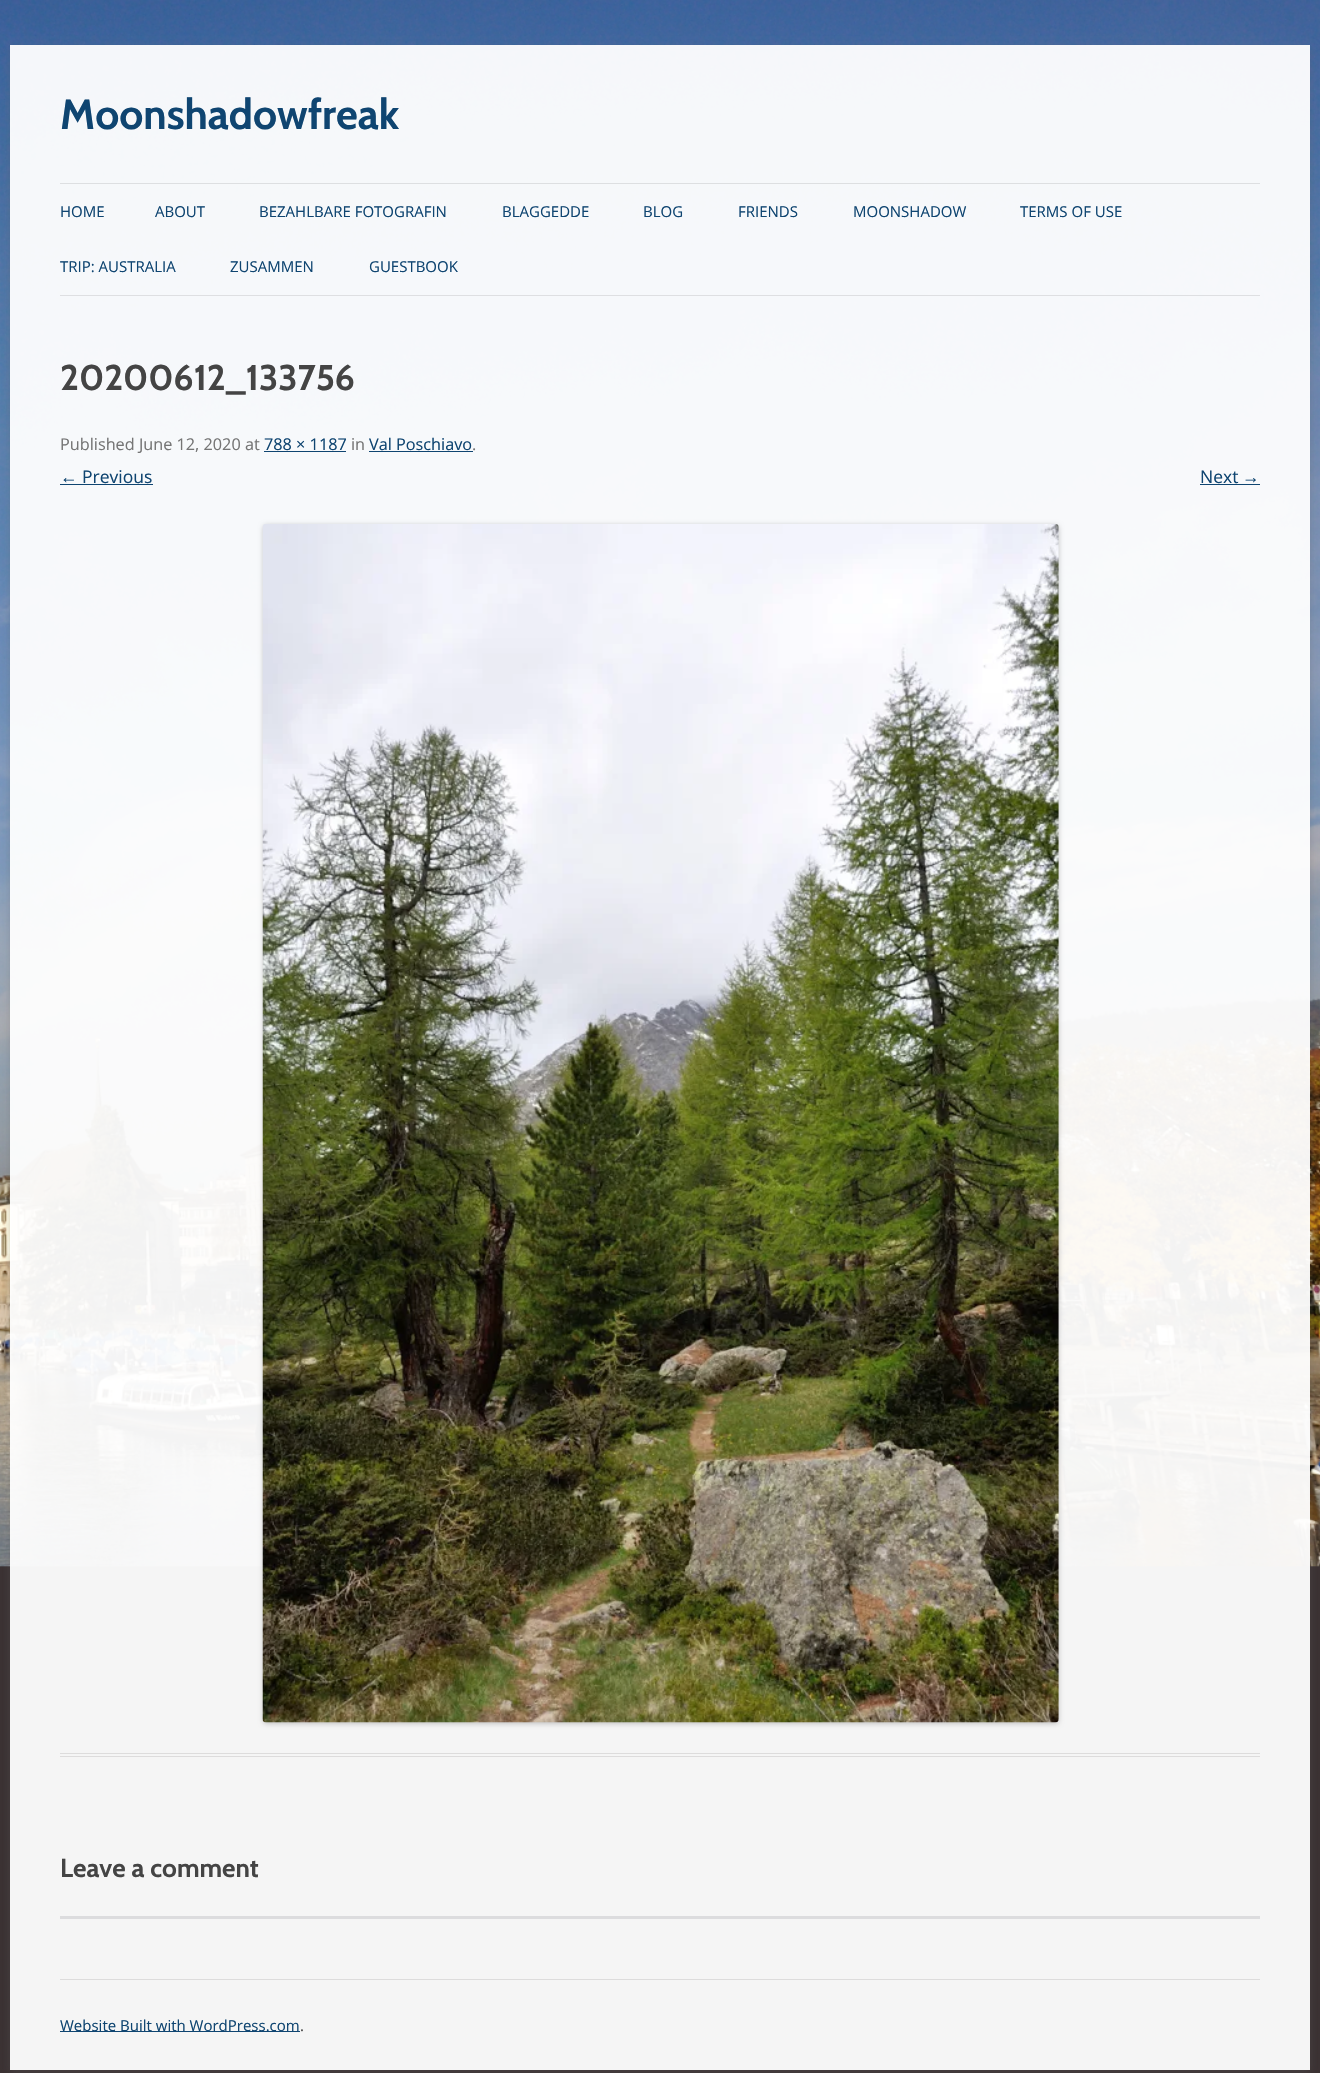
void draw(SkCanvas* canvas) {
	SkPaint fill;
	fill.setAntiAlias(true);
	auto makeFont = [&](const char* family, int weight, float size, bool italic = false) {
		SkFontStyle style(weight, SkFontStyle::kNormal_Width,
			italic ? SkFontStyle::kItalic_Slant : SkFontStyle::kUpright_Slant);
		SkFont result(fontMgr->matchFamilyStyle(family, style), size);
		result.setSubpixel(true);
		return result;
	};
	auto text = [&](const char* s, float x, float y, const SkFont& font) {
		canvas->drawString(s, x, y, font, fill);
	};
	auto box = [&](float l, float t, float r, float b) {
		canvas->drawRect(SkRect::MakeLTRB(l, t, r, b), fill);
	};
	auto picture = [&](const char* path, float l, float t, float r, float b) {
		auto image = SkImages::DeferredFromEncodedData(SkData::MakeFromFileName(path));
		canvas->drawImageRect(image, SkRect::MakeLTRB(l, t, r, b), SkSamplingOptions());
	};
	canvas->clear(0xFF3A3132);
	fill.setColor(0xFFF5F5F5);
	box(10, 1566, 1310, 2070);
	picture("image0.png", 0, 0, 1320, 1567);
	canvas->save();
	canvas->clipPath(SkPathBuilder(SkPathFillType::kEvenOdd).moveTo(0, 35).lineTo(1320, 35).lineTo(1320, 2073).lineTo(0, 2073).close().moveTo(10, 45).lineTo(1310, 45).lineTo(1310, 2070).lineTo(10, 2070).close().detach(), true);
	fill.setColor(0x4D646464);
	fill.setMaskFilter(SkMaskFilter::MakeBlur(kNormal_SkBlurStyle, 4));
	canvas->drawRect(SkRect::MakeLTRB(10, 48, 1310, 2073), fill);
	fill.setMaskFilter(nullptr);
	canvas->restore();
	fill.setColor(0xFFDDDFE1);
	box(60, 183, 1260, 184);
	fill.setColor(0xFFDEDFE2);
	box(60, 295, 1260, 296);
	fill.setColor(0xFFDDDCDC);
	box(60, 1753, 1260, 1754);
	box(60, 1756, 1260, 1757);
	fill.setColor(0xFF0F4571);
	box(264, 451, 346, 452);
	box(369, 451, 473, 452);
	box(60, 484, 153, 485);
	box(1200, 484, 1260, 485);
	fill.setColor(0x33000000);
	fill.setMaskFilter(SkMaskFilter::MakeBlur(kNormal_SkBlurStyle, 2.5f));
	canvas->drawRoundRect(SkRect::MakeLTRB(263, 525, 1059, 1724), 4, 4, fill);
	fill.setMaskFilter(nullptr);
	picture("image1.png", 262, 524, 1059, 1723);
	fill.setColor(0xFFDCDCDE);
	box(60, 1916, 1260, 1919);
	fill.setColor(0xFFDDDCDC);
	box(60, 1979, 1260, 1980);
	fill.setColor(0xFF0F4571);
	box(60, 2031, 300, 2032);
	auto font1 = makeFont("Cabin", 700, 42.25f);
	text("Moonshadowfreak", 60, 129, font1);
	auto font2 = makeFont("Open Sans", 400, 15);
	text("HOME", 60, 217, font2);
	text("ABOUT", 155, 217, font2);
	text("BEZAHLBARE FOTOGRAFIN", 259, 217, font2);
	text("BLAGGEDDE", 502, 217, font2);
	text("BLOG", 643, 217, font2);
	text("FRIENDS", 738, 217, font2);
	text("MOONSHADOW", 853, 217, font2);
	text("TERMS OF USE", 1020, 217, font2);
	text("TRIP: AUSTRALIA", 60, 272, font2);
	text("ZUSAMMEN", 230, 272, font2);
	text("GUESTBOOK", 369, 272, font2);
	auto font3 = makeFont("Cabin", 700, 35.75f);
	fill.setColor(0xFF444444);
	text("20200612_133756", 60, 390, font3);
	auto font4 = makeFont("Open Sans", 400, 16.25f);
	fill.setColor(0xFF757575);
	text("Published June 12, 2020 at", 60, 450, font4);
	fill.setColor(0xFF0F4571);
	text("788 × 1187", 264, 450, font4);
	fill.setColor(0xFF757575);
	text("in", 351, 450, font4);
	fill.setColor(0xFF0F4571);
	text("Val Poschiavo", 369, 450, font4);
	fill.setColor(0xFF757575);
	text(".", 472, 450, font4);
	auto font5 = makeFont("Liberation Sans", 400, 17.5f);
	fill.setColor(0xFF0F4571);
	text("←", 60, 483, font5);
	auto font6 = makeFont("Open Sans", 400, 17.5f);
	text("Previous", 82, 483, font6);
	text("Next", 1200, 483, font6);
	text("→", 1242, 483, font5);
	auto font7 = makeFont("Cabin", 700, 26);
	fill.setColor(0xFF444444);
	text("Leave a comment", 60, 1877, font7);
	fill.setColor(0xFF0F4571);
	text("Website Built with WordPress.com", 60, 2031, font2);
	fill.setColor(0xFF444444);
	text(".", 300, 2031, font2);
}
